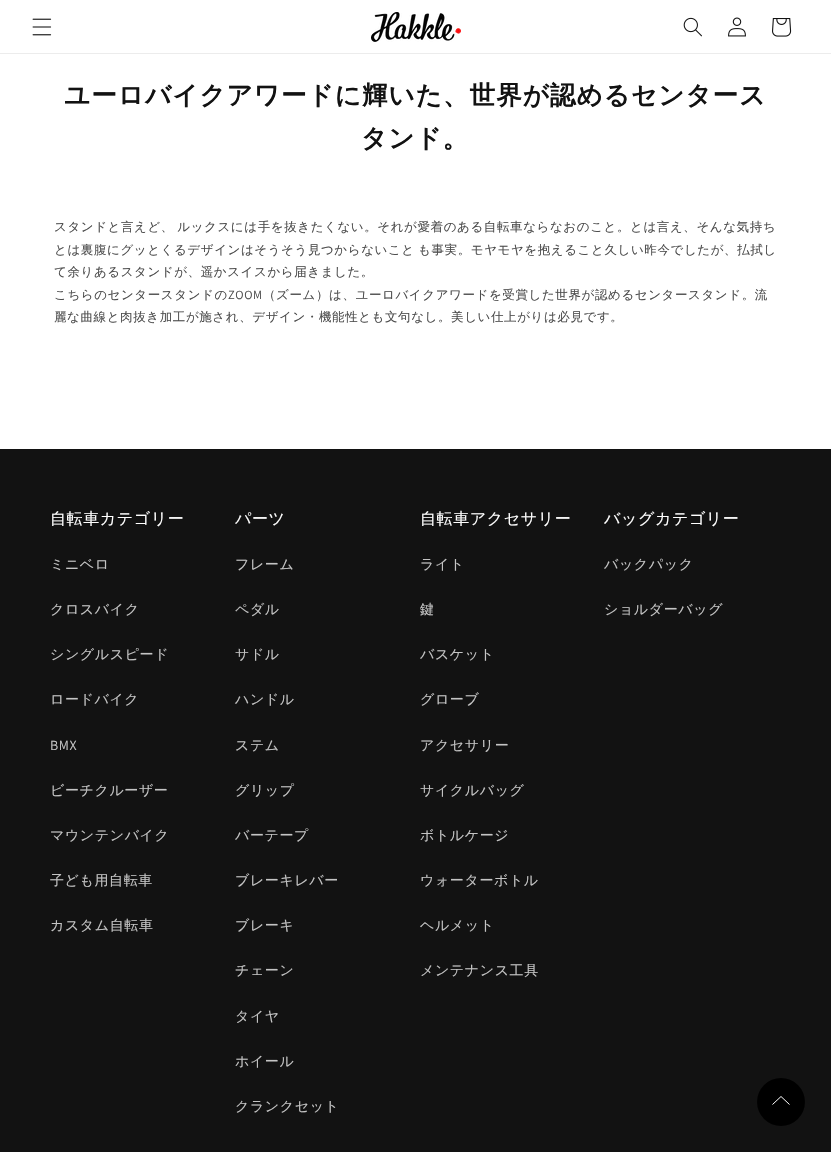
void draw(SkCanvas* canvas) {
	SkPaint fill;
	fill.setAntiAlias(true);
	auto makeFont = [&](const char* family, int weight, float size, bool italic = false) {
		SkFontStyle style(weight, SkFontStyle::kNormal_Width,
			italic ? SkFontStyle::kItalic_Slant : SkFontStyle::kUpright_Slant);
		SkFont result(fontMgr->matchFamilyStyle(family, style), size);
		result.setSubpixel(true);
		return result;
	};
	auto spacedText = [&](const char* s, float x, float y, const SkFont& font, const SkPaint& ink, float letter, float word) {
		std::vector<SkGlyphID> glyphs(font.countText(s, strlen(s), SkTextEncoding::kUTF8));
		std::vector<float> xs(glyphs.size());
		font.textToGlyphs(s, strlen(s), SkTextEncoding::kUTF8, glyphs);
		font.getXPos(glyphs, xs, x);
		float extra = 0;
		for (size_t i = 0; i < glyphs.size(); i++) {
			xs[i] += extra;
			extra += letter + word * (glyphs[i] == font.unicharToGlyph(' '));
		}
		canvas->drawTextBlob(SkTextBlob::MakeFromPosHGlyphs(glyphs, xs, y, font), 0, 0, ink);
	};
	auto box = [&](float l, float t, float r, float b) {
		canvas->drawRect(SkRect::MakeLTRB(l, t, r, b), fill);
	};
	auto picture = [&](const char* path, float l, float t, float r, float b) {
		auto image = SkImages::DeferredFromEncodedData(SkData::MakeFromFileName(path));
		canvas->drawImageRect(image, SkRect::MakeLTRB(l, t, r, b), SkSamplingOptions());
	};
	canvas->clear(0xFFFFFFFF);
	fill.setColor(0xFFECECEC);
	box(0, 53, 831, 54);
	picture("image0.png", 32, 18, 52, 36);
	picture("image1.png", 371, 12, 461, 42);
	picture("image2.png", 683, 17, 702, 37);
	picture("image3.png", 728, 17, 746, 37);
	picture("image4.png", 772, 18, 792, 37);
	fill.setColor(0xFF121212);
	box(0, 449, 831, 1152);
	fill.setColor(0xFF000000);
	canvas->drawCircle(781, 1102, 24, fill);
	fill.setStyle(SkPaint::kStroke_Style);
	fill.setStrokeWidth(1);
	fill.setColor(0xFFFFFFFF);
	canvas->drawPath(SkPathBuilder().moveTo(772.5f, 1104.5f).lineTo(781, 1096.5f).lineTo(789.5f, 1104.5f).detach(), fill);
	auto font1 = makeFont("WenQuanYi Zen Hei", 700, 25.6f);
	fill.setStyle(SkPaint::kFill_Style);
	fill.setColor(0xFF121212);
	spacedText("ユーロバイクアワードに輝いた、世界が認めるセンタース", 64, 104, font1, fill, 1, 0);
	spacedText("タンド。", 361, 147, font1, fill, 1, 0);
	auto font2 = makeFont("WenQuanYi Zen Hei", 500, 12.5f);
	fill.setColor(0xFF4D4D4D);
	spacedText("スタンドと言えど、 ルックスには手を抜きたくない。それが愛着のある自転車ならなおのこと。とは言え、そんな気持ち", 54, 231, font2, fill, 0.6f, -1);
	spacedText("とは裏腹にグッとくるデザインはそうそう見つからないこと も事実。モヤモヤを抱えること久しい昨今でしたが、払拭し", 54, 254, font2, fill, 0.6f, -1);
	spacedText("て余りあるスタンドが、遥かスイスから届きました。", 54, 276, font2, fill, 0.6f, 0);
	spacedText("こちらのセンタースタンドの", 54, 299, font2, fill, 0.6f, 0);
	auto font3 = makeFont("Assistant", 400, 12.5f);
	spacedText("ZOOM", 228, 299, font3, fill, 0.6f, 0);
	spacedText("（ズーム）は、ユーロバイクアワードを受賞した世界が認めるセンタースタンド。流", 263, 299, font2, fill, 0.6f, 0);
	spacedText("麗な曲線と肉抜き加工が施され、デザイン・機能性とも文句なし。美しい仕上がりは必見です。", 54, 321, font2, fill, 0.6f, 0);
	auto font4 = makeFont("WenQuanYi Zen Hei", 500, 16);
	fill.setColor(0xFFFFFFFF);
	spacedText("自転車カテゴリー", 50, 524, font4, fill, 0.6f, 0);
	auto font5 = makeFont("WenQuanYi Zen Hei", 500, 14);
	fill.setColor(0xFFC4C4C4);
	spacedText("ミニベロ", 50, 569, font5, fill, 0.6f, 0);
	spacedText("クロスバイク", 50, 614, font5, fill, 0.6f, 0);
	spacedText("シングルスピード", 50, 659, font5, fill, 0.6f, 0);
	spacedText("ロードバイク", 50, 704, font5, fill, 0.6f, 0);
	auto font6 = makeFont("Assistant", 400, 14);
	spacedText("BMX", 50, 750, font6, fill, 0.6f, 0);
	spacedText("ビーチクルーザー", 50, 795, font5, fill, 0.6f, 0);
	spacedText("マウンテンバイク", 50, 840, font5, fill, 0.6f, 0);
	spacedText("子ども用自転車", 50, 885, font5, fill, 0.6f, 0);
	spacedText("カスタム自転車", 50, 930, font5, fill, 0.6f, 0);
	fill.setColor(0xFFFFFFFF);
	spacedText("パーツ", 235, 524, font4, fill, 0.6f, 0);
	fill.setColor(0xFFC4C4C4);
	spacedText("フレーム", 235, 569, font5, fill, 0.6f, 0);
	spacedText("ペダル", 235, 614, font5, fill, 0.6f, 0);
	spacedText("サドル", 235, 659, font5, fill, 0.6f, 0);
	spacedText("ハンドル", 235, 704, font5, fill, 0.6f, 0);
	spacedText("ステム", 235, 750, font5, fill, 0.6f, 0);
	spacedText("グリップ", 235, 795, font5, fill, 0.6f, 0);
	spacedText("バーテープ", 235, 840, font5, fill, 0.6f, 0);
	spacedText("ブレーキレバー", 235, 885, font5, fill, 0.6f, 0);
	spacedText("ブレーキ", 235, 930, font5, fill, 0.6f, 0);
	spacedText("チェーン", 235, 975, font5, fill, 0.6f, 0);
	spacedText("タイヤ", 235, 1021, font5, fill, 0.6f, 0);
	spacedText("ホイール", 235, 1066, font5, fill, 0.6f, 0);
	spacedText("クランクセット", 235, 1111, font5, fill, 0.6f, 0);
	fill.setColor(0xFFFFFFFF);
	spacedText("自転車アクセサリー", 420, 524, font4, fill, 0.6f, 0);
	fill.setColor(0xFFC4C4C4);
	spacedText("ライト", 420, 569, font5, fill, 0.6f, 0);
	spacedText("鍵", 420, 614, font5, fill, 0.6f, 0);
	spacedText("バスケット", 420, 659, font5, fill, 0.6f, 0);
	spacedText("グローブ", 420, 704, font5, fill, 0.6f, 0);
	spacedText("アクセサリー", 420, 750, font5, fill, 0.6f, 0);
	spacedText("サイクルバッグ", 420, 795, font5, fill, 0.6f, 0);
	spacedText("ボトルケージ", 420, 840, font5, fill, 0.6f, 0);
	spacedText("ウォーターボトル", 420, 885, font5, fill, 0.6f, 0);
	spacedText("ヘルメット", 420, 930, font5, fill, 0.6f, 0);
	spacedText("メンテナンス工具", 420, 975, font5, fill, 0.6f, 0);
	fill.setColor(0xFFFFFFFF);
	spacedText("バッグカテゴリー", 604, 524, font4, fill, 0.6f, 0);
	fill.setColor(0xFFC4C4C4);
	spacedText("バックパック", 604, 569, font5, fill, 0.6f, 0);
	spacedText("ショルダーバッグ", 604, 614, font5, fill, 0.6f, 0);
}
